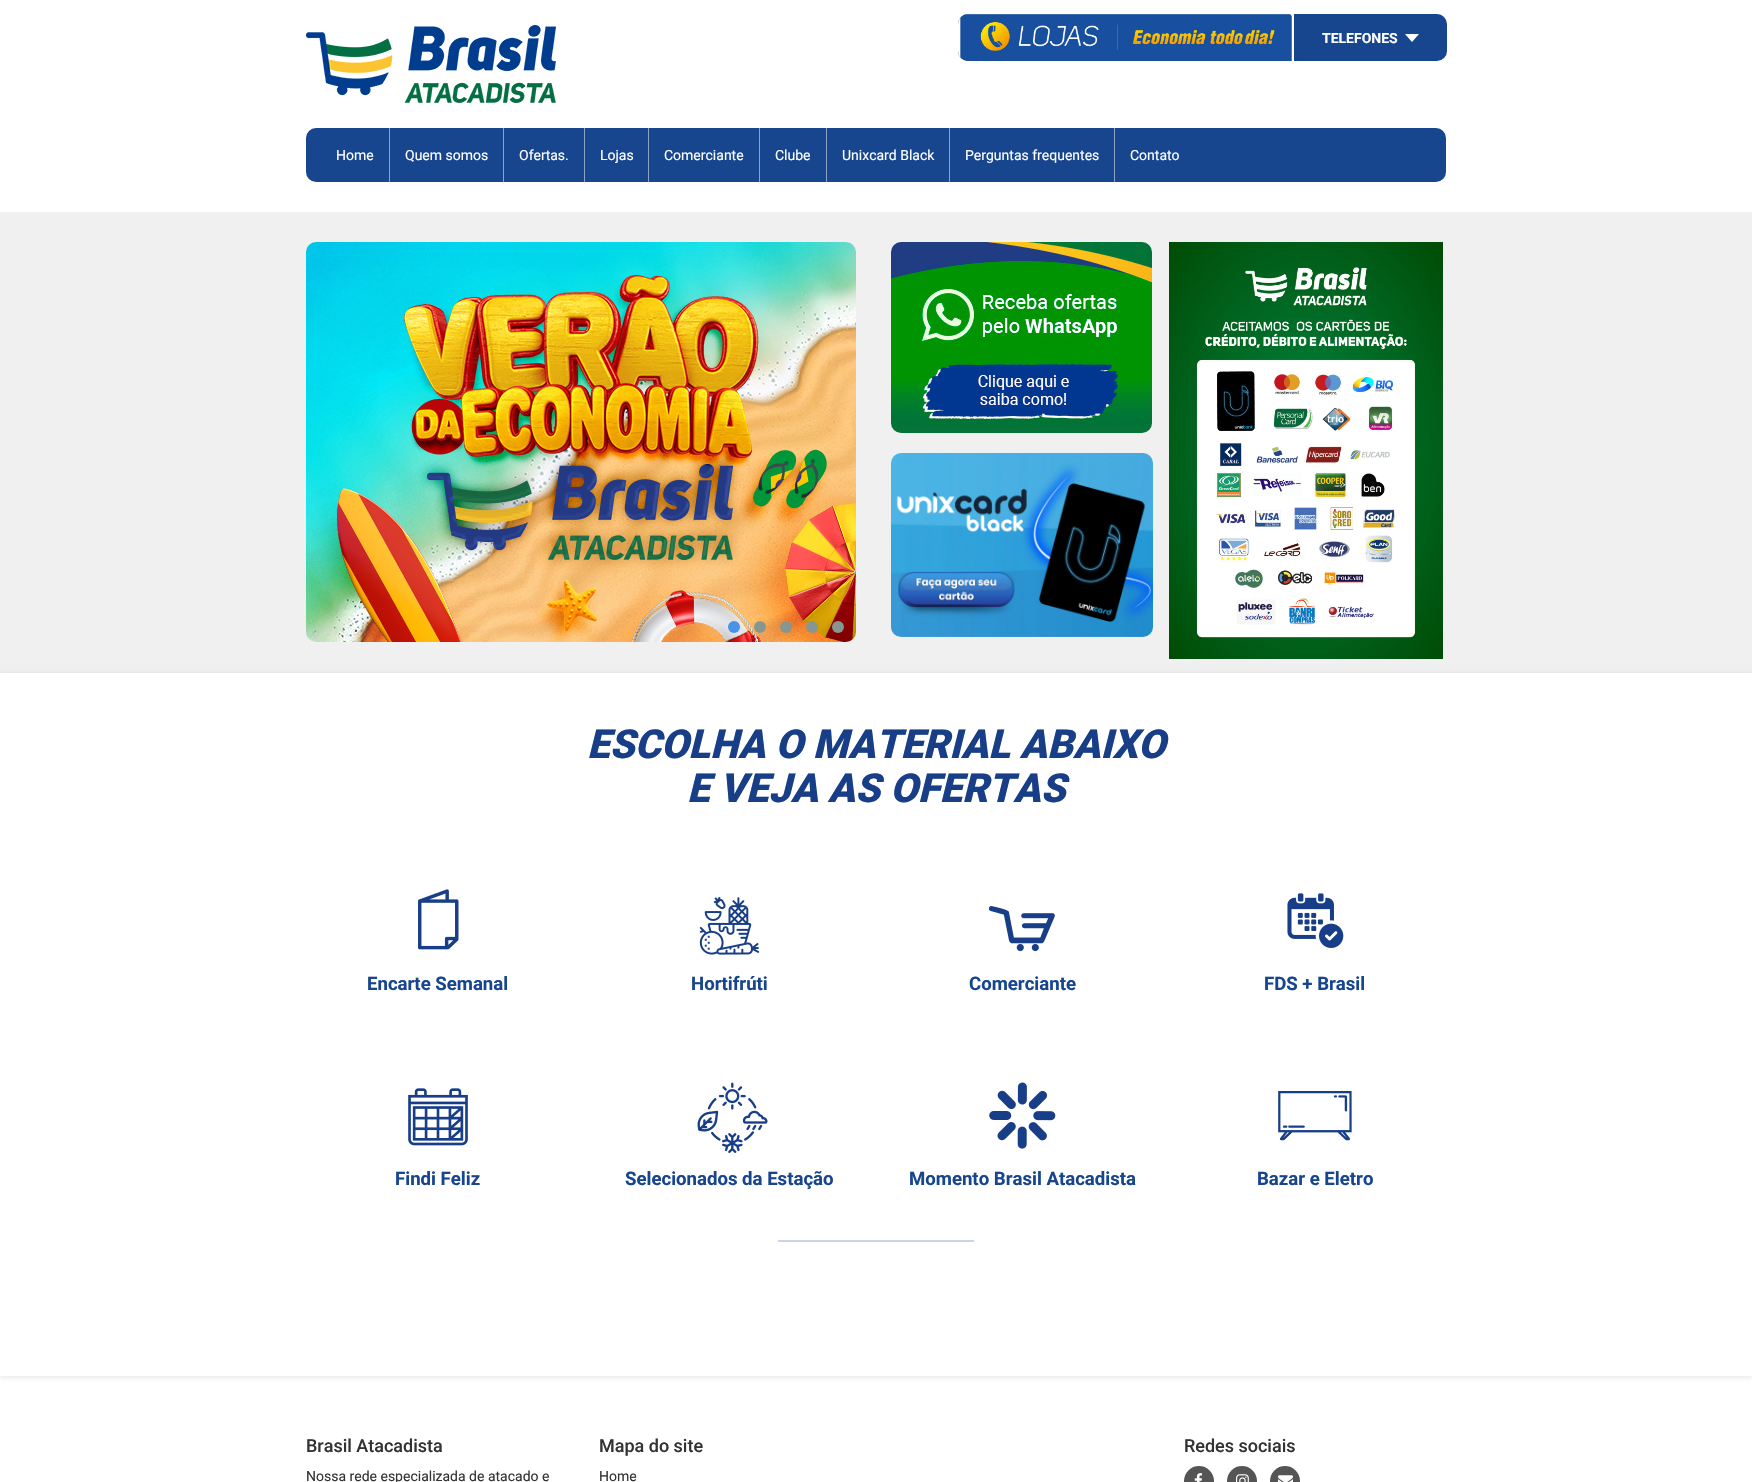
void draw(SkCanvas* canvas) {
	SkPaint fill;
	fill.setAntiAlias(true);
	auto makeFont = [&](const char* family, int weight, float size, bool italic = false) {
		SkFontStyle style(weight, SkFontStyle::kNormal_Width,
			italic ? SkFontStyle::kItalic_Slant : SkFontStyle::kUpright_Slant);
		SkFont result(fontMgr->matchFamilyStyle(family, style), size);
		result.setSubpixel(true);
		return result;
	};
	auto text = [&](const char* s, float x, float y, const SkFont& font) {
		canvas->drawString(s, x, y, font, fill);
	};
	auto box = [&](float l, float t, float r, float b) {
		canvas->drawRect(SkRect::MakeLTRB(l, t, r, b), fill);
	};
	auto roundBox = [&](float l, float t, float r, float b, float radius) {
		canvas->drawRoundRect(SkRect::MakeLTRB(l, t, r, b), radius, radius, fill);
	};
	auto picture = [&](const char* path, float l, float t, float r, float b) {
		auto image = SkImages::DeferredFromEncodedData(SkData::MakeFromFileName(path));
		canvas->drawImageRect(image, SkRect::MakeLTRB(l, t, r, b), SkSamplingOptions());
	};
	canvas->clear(0xFFFFFFFF);
	picture("image0.png", 306, 25, 556, 103);
	fill.setColor(0xFF17468F);
	roundBox(958, 14, 1447, 61, 10);
	picture("image1.png", 958, 14, 1294, 61);
	fill.setColor(0xFFFFFFFF);
	canvas->drawPath(SkPathBuilder().moveTo(1405, 34).lineTo(1419, 34).lineTo(1412, 42).close().detach(), fill);
	fill.setColor(0xFF17468F);
	roundBox(306, 128, 1446, 182, 10);
	fill.setColor(0xFF8BA3C7);
	box(389, 128, 390, 182);
	box(503, 128, 504, 182);
	box(584, 128, 585, 182);
	box(648, 128, 649, 182);
	box(759, 128, 760, 182);
	box(826, 128, 827, 182);
	box(949, 128, 950, 182);
	box(1114, 128, 1115, 182);
	fill.setColor(0xFFF0F0F0);
	box(0, 212, 1752, 673);
	picture("image2.png", 306, 242, 856, 642);
	fill.setColor(0xFF4993E4);
	canvas->drawCircle(734, 627, 6, fill);
	fill.setColor(0xFF869791);
	canvas->drawCircle(760, 627, 6, fill);
	canvas->drawCircle(786, 627, 6, fill);
	canvas->drawCircle(812, 627, 6, fill);
	canvas->drawCircle(838, 627, 6, fill);
	picture("image3.png", 891, 242, 1152, 433);
	picture("image4.png", 891, 453, 1153, 637);
	picture("image5.png", 1169, 242, 1443, 659);
	canvas->save();
	canvas->clipPath(SkPathBuilder(SkPathFillType::kEvenOdd).moveTo(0, 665).lineTo(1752, 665).lineTo(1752, 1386).lineTo(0, 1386).close().moveTo(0, 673).lineTo(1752, 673).lineTo(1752, 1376).lineTo(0, 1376).close().detach(), true);
	fill.setColor(0x1A000000);
	fill.setMaskFilter(SkMaskFilter::MakeBlur(kNormal_SkBlurStyle, 2.5f));
	canvas->drawRect(SkRect::MakeLTRB(0, 674, 1752, 1377), fill);
	fill.setMaskFilter(nullptr);
	canvas->restore();
	picture("image6.png", 418, 889, 459, 950);
	picture("image7.png", 699, 896, 760, 955);
	picture("image8.png", 988, 906, 1055, 952);
	picture("image9.png", 1287, 893, 1344, 948);
	picture("image10.png", 408, 1088, 468, 1146);
	picture("image11.png", 697, 1082, 768, 1153);
	picture("image12.png", 989, 1082, 1056, 1149);
	picture("image13.png", 1278, 1091, 1352, 1141);
	fill.setColor(0xFFCCD5E5);
	box(778, 1240, 974, 1242);
	fill.setColor(0xFF555555);
	canvas->drawCircle(1199, 1481, 15, fill);
	picture("image14.png", 1194, 1473, 1203, 1482);
	canvas->drawCircle(1242, 1481, 15, fill);
	picture("image15.png", 1236, 1474, 1249, 1482);
	canvas->drawCircle(1285, 1481, 15, fill);
	picture("image16.png", 1278, 1475, 1293, 1482);
	auto font1 = makeFont("Roboto", 700, 14);
	fill.setColor(0xFFFFFFFF);
	text("TELEFONES", 1322, 43, font1);
	auto font2 = makeFont("Roboto", 400, 14);
	text("Home", 336, 160, font2);
	text("Quem somos", 405, 160, font2);
	text("Ofertas.", 519, 160, font2);
	text("Lojas", 600, 160, font2);
	text("Comerciante", 664, 160, font2);
	text("Clube", 775, 160, font2);
	text("Unixcard Black", 842, 160, font2);
	text("Perguntas frequentes", 965, 160, font2);
	text("Contato", 1130, 160, font2);
	auto font3 = makeFont("Roboto", 900, 40, true);
	fill.setColor(0xFF183E87);
	text("ESCOLHA O MATERIAL ABAIXO", 587, 758, font3);
	text("E VEJA AS OFERTAS", 687, 802, font3);
	auto font4 = makeFont("Roboto", 700, 18.6f);
	fill.setColor(0xFF17468F);
	text("Encarte Semanal", 367, 990, font4);
	text("Hortifrúti", 691, 990, font4);
	text("Comerciante", 969, 990, font4);
	text("FDS + Brasil", 1264, 990, font4);
	text("Findi Feliz", 395, 1185, font4);
	text("Selecionados da Estação", 625, 1185, font4);
	text("Momento Brasil Atacadista", 909, 1185, font4);
	text("Bazar e Eletro", 1257, 1185, font4);
	auto font5 = makeFont("Roboto", 500, 18);
	fill.setColor(0xFF333333);
	text("Brasil Atacadista", 306, 1452, font5);
	text("Nossa rede especializada de atacado e", 306, 1481, font2);
	text("Mapa do site", 599, 1452, font5);
	text("Home", 599, 1481, font2);
	text("Redes sociais", 1184, 1452, font5);
}
